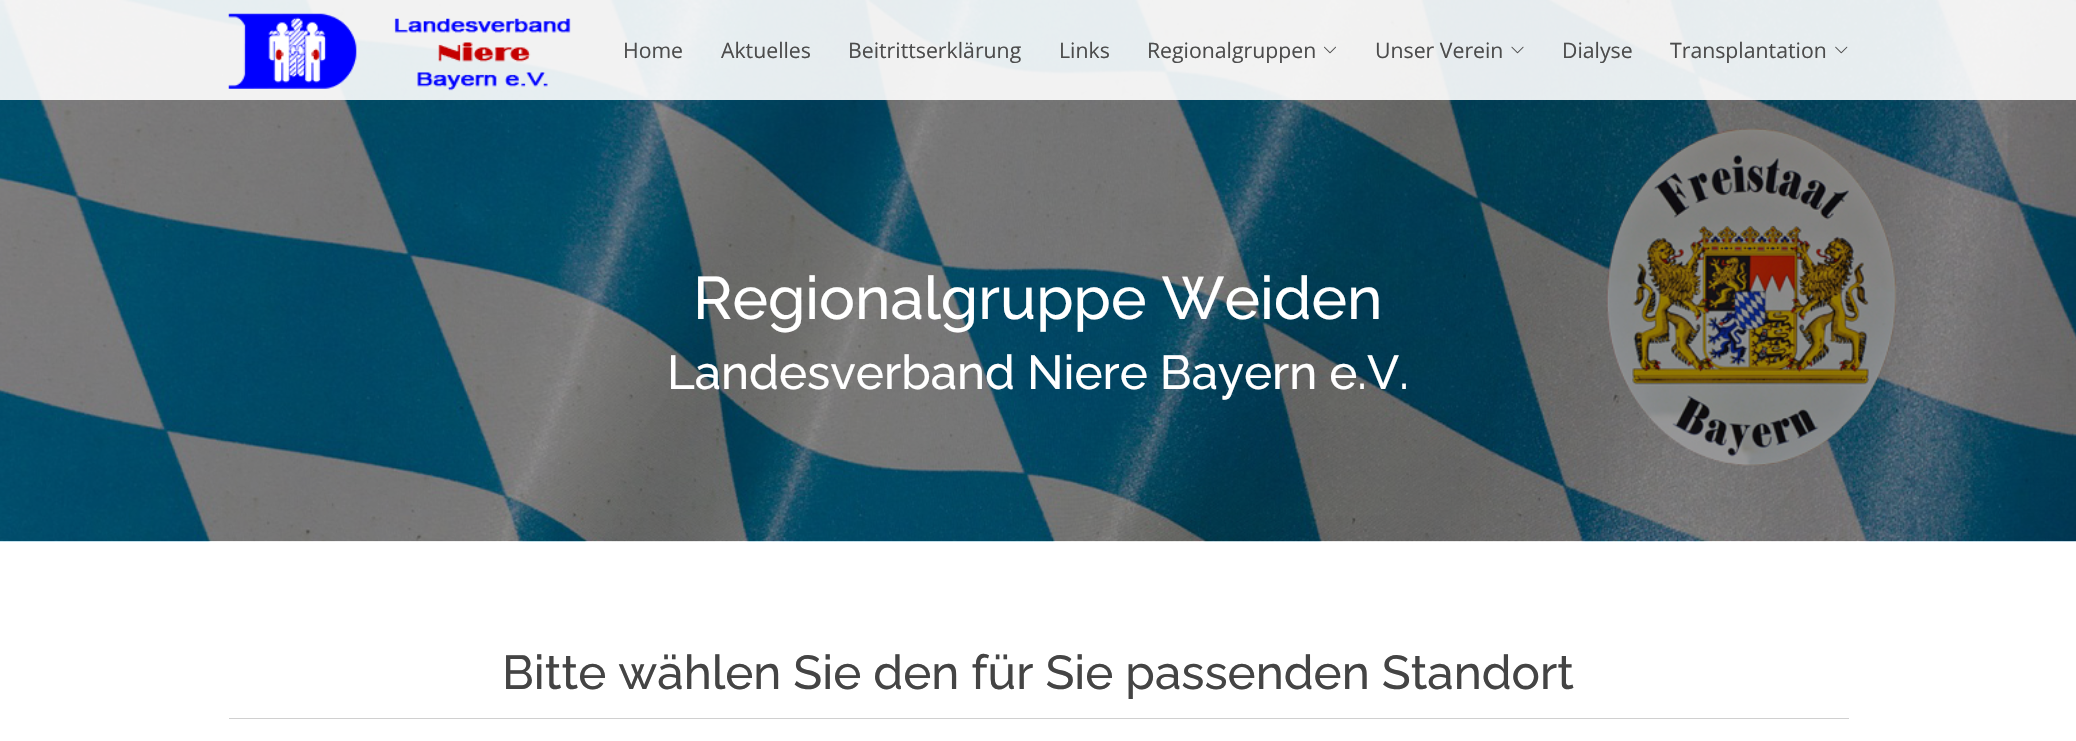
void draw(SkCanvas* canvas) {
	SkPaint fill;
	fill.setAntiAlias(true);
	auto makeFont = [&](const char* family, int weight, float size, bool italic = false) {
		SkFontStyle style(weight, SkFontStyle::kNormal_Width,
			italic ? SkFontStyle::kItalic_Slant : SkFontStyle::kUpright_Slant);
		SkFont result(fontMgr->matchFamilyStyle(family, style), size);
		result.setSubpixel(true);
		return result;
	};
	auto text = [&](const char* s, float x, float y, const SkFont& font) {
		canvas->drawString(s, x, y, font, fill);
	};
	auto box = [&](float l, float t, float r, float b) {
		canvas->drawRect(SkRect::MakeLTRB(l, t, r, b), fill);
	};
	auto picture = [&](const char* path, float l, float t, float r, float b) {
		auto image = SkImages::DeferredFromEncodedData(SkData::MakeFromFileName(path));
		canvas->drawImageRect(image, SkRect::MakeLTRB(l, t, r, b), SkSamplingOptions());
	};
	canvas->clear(0xFFFFFFFF);
	picture("image4.png", 0, 0, 2076, 542);
	fill.setColor(0xE6FFFFFF);
	box(0, 0, 2076, 100);
	picture("image0.png", 228, 13, 571, 91);
	picture("image1.png", 1324, 46, 1336, 54);
	picture("image2.png", 1511, 46, 1524, 54);
	picture("image3.png", 1835, 46, 1848, 54);
	fill.setColor(0xFFD0D0D0);
	box(229, 718, 1849, 719);
	auto font1 = makeFont("Open Sans", 400, 21.25f);
	fill.setColor(0xFF4C4C4C);
	text("Home", 623, 58, font1);
	text("Aktuelles", 721, 58, font1);
	text("Beitrittserklärung", 848, 58, font1);
	text("Links", 1059, 58, font1);
	text("Regionalgruppen", 1147, 58, font1);
	text("Unser Verein", 1375, 58, font1);
	text("Dialyse", 1562, 58, font1);
	text("Transplantation", 1670, 58, font1);
	auto font2 = makeFont("Raleway", 500, 60);
	fill.setColor(0xFFFFFFFF);
	text("Regionalgruppe Weiden", 693, 319, font2);
	auto font3 = makeFont("Raleway", 500, 47.5f);
	text("Landesverband Niere Bayern e.V.", 667, 389, font3);
	fill.setColor(0xFF444444);
	text("Bitte wählen Sie den für Sie passenden Standort", 502, 689, font3);
}
